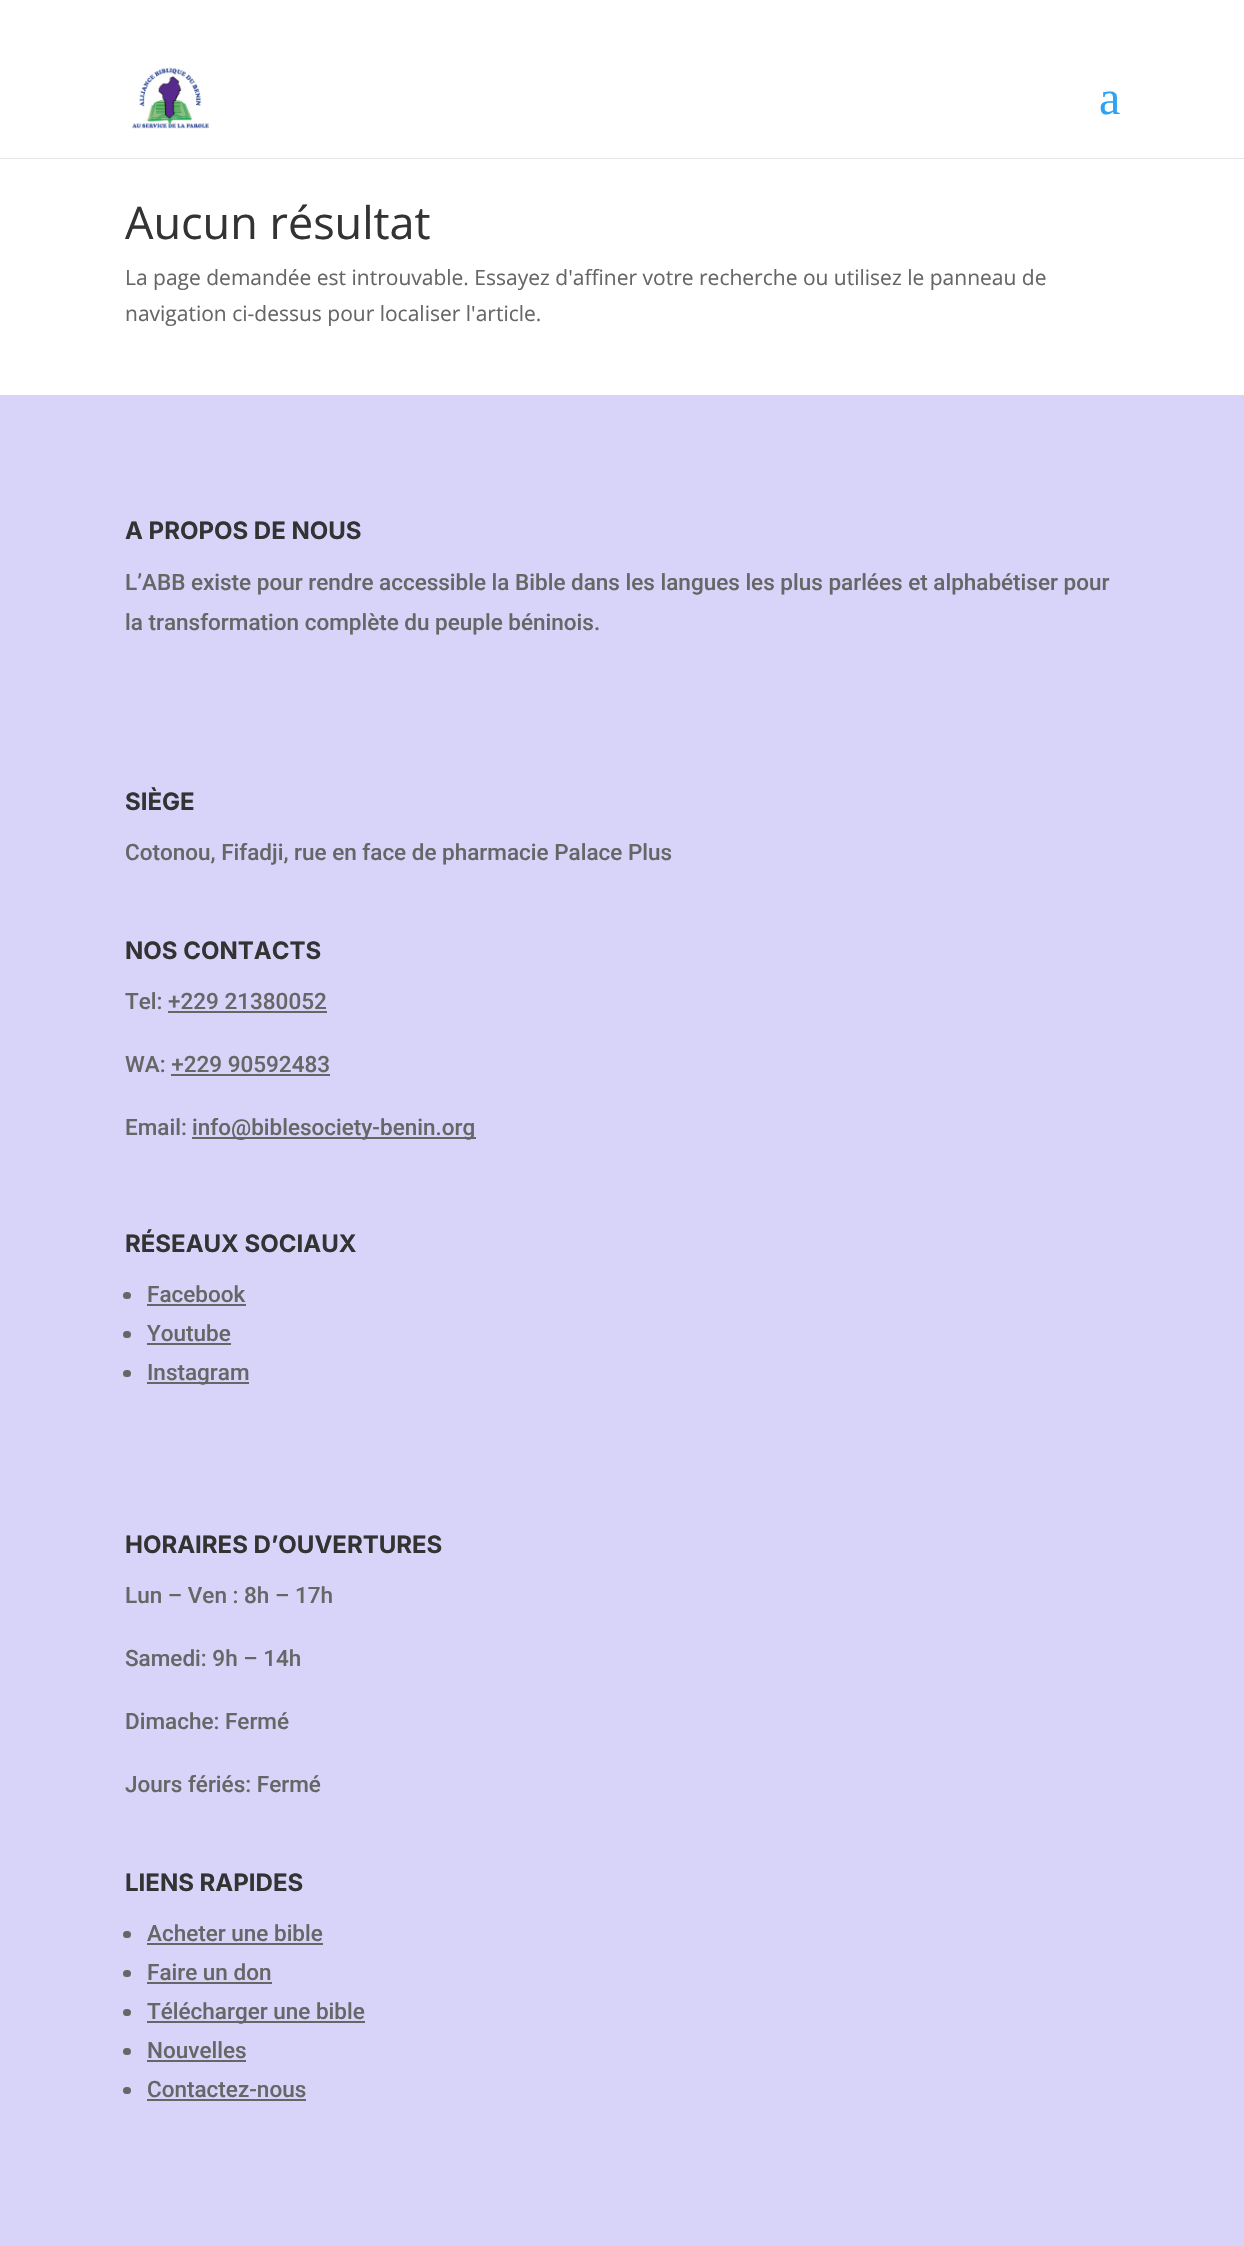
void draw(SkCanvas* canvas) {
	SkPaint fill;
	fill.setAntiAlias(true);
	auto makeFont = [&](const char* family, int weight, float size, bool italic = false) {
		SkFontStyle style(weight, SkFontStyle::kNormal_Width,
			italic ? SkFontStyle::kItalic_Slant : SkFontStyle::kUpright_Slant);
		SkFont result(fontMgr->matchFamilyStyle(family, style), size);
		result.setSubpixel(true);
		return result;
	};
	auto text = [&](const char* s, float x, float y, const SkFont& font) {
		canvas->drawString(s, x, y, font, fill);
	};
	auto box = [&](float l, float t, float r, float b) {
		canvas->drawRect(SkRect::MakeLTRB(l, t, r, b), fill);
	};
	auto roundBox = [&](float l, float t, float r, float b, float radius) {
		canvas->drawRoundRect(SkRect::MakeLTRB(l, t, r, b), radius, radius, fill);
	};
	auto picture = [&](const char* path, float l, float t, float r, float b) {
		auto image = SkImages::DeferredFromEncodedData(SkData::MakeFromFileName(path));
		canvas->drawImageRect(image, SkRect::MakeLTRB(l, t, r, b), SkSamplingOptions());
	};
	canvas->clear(0xFFFFFFFF);
	fill.setColor(0xFFE6E6E6);
	box(0, 158, 1244, 159);
	picture("image0.png", 132, 67, 210, 129);
	fill.setColor(0xFFD8D3F8);
	box(0, 395, 1244, 2246);
	fill.setColor(0xFF666666);
	box(168, 1011, 327, 1013);
	box(171, 1074, 330, 1076);
	box(192, 1137, 476, 1139);
	roundBox(123, 1292, 131, 1299, 3.5f);
	box(147, 1304, 246, 1306);
	roundBox(123, 1331, 131, 1338, 3.5f);
	box(147, 1343, 231, 1345);
	roundBox(123, 1370, 131, 1377, 3.5f);
	box(147, 1382, 249, 1384);
	roundBox(123, 1931, 131, 1938, 3.5f);
	box(147, 1943, 323, 1945);
	roundBox(123, 1970, 131, 1977, 3.5f);
	box(147, 1982, 272, 1984);
	roundBox(123, 2009, 131, 2016, 3.5f);
	box(147, 2021, 365, 2023);
	roundBox(123, 2048, 131, 2055, 3.5f);
	box(147, 2060, 246, 2062);
	roundBox(123, 2087, 131, 2094, 3.5f);
	box(147, 2099, 306, 2101);
	auto font1 = makeFont("Liberation Serif", 400, 48);
	fill.setColor(0xFF2EA3F2);
	text("a", 1099, 114, font1);
	auto font2 = makeFont("Open Sans", 400, 45);
	fill.setColor(0xFF333333);
	text("Aucun résultat", 125, 239, font2);
	auto font3 = makeFont("Open Sans", 400, 21);
	fill.setColor(0xFF666666);
	text("La page demandée est introuvable. Essayez d'affiner votre recherche ou utilisez le panneau de", 125, 285, font3);
	text("navigation ci-dessus pour localiser l'article.", 125, 321, font3);
	auto font4 = makeFont("Inter", 700, 24);
	fill.setColor(0xFF333333);
	text("A PROPOS DE NOUS", 125, 539, font4);
	auto font5 = makeFont("Roboto", 500, 22.5f);
	fill.setColor(0xFF666666);
	text("L’ABB existe pour rendre accessible la Bible dans les langues les plus parlées et alphabétiser pour", 125, 590, font5);
	text("la transformation complète du peuple béninois.", 125, 630, font5);
	fill.setColor(0xFF333333);
	text("SIÈGE", 125, 810, font4);
	fill.setColor(0xFF666666);
	text("Cotonou, Fifadji, rue en face de pharmacie Palace Plus", 125, 860, font5);
	fill.setColor(0xFF333333);
	text("NOS CONTACTS", 125, 959, font4);
	fill.setColor(0xFF666666);
	text("Tel: +229 21380052", 125, 1009, font5);
	text("WA: +229 90592483", 125, 1072, font5);
	text("Email:", 125, 1135, font5);
	text("info@biblesociety-benin.org", 192, 1135, font5);
	fill.setColor(0xFF333333);
	text("RÉSEAUX SOCIAUX", 125, 1252, font4);
	fill.setColor(0xFF666666);
	text("Facebook", 147, 1302, font5);
	text("Youtube", 147, 1341, font5);
	text("Instagram", 147, 1380, font5);
	fill.setColor(0xFF333333);
	text("HORAIRES D’OUVERTURES", 125, 1553, font4);
	fill.setColor(0xFF666666);
	text("Lun – Ven : 8h – 17h", 125, 1603, font5);
	text("Samedi: 9h – 14h", 125, 1666, font5);
	text("Dimache: Fermé", 125, 1729, font5);
	text("Jours fériés: Fermé", 125, 1792, font5);
	fill.setColor(0xFF333333);
	text("LIENS RAPIDES", 125, 1891, font4);
	fill.setColor(0xFF666666);
	text("Acheter une bible", 147, 1941, font5);
	text("Faire un don", 147, 1980, font5);
	text("Télécharger une bible", 147, 2019, font5);
	text("Nouvelles", 147, 2058, font5);
	text("Contactez-nous", 147, 2097, font5);
}
